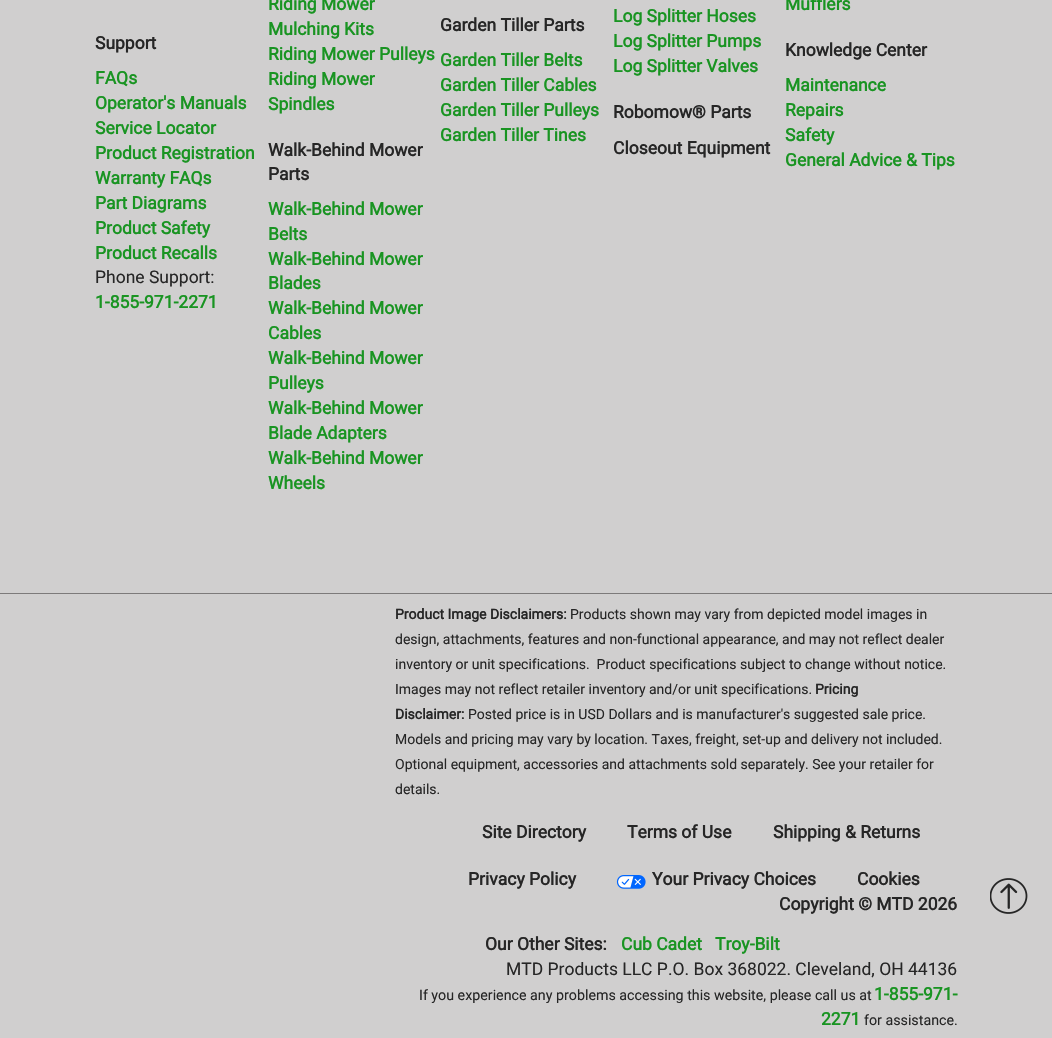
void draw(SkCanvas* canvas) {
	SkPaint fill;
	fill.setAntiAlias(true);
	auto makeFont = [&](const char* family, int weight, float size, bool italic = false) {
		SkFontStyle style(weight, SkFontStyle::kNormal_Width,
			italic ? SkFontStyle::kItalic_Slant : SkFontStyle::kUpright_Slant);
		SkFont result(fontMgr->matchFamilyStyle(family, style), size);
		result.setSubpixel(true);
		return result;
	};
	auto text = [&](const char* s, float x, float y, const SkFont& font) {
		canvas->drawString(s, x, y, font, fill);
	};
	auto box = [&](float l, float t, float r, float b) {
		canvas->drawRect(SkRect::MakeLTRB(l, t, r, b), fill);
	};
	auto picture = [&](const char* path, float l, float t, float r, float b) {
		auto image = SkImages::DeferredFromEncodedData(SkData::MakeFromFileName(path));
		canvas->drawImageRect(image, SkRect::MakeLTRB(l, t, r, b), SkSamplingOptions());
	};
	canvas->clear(0xFFD0CFCF);
	fill.setColor(0xFF7C7A7A);
	box(0, 593, 1052, 594);
	picture("image0.png", 616, 875, 646, 889);
	picture("image1.png", 990, 878, 1028, 914);
	auto font1 = makeFont("Roboto", 700, 17.5f);
	fill.setColor(0xFF262626);
	text("Support", 95, 49, font1);
	fill.setColor(0xFF199422);
	text("FAQs", 95, 84, font1);
	text("Operator's Manuals", 95, 109, font1);
	text("Service Locator", 95, 134, font1);
	text("Product Registration", 95, 159, font1);
	text("Warranty FAQs", 95, 184, font1);
	text("Part Diagrams", 95, 209, font1);
	text("Product Safety", 95, 234, font1);
	text("Product Recalls", 95, 259, font1);
	auto font2 = makeFont("Roboto", 400, 17.5f);
	fill.setColor(0xFF262626);
	text("Phone Support:", 95, 283, font2);
	fill.setColor(0xFF199422);
	text("1-855-971-2271", 95, 308, font1);
	text("Riding Mower", 268, 10, font1);
	text("Mulching Kits", 268, 35, font1);
	text("Riding Mower Pulleys", 268, 60, font1);
	text("Riding Mower", 268, 85, font1);
	text("Spindles", 268, 110, font1);
	fill.setColor(0xFF262626);
	text("Walk-Behind Mower", 268, 156, font1);
	text("Parts", 268, 180, font1);
	fill.setColor(0xFF199422);
	text("Walk-Behind Mower", 268, 215, font1);
	text("Belts", 268, 240, font1);
	text("Walk-Behind Mower", 268, 265, font1);
	text("Blades", 268, 289, font1);
	text("Walk-Behind Mower", 268, 314, font1);
	text("Cables", 268, 339, font1);
	text("Walk-Behind Mower", 268, 364, font1);
	text("Pulleys", 268, 389, font1);
	text("Walk-Behind Mower", 268, 414, font1);
	text("Blade Adapters", 268, 439, font1);
	text("Walk-Behind Mower", 268, 464, font1);
	text("Wheels", 268, 489, font1);
	fill.setColor(0xFF262626);
	text("Garden Tiller Parts", 440, 31, font1);
	fill.setColor(0xFF199422);
	text("Garden Tiller Belts", 440, 66, font1);
	text("Garden Tiller Cables", 440, 91, font1);
	text("Garden Tiller Pulleys", 440, 116, font1);
	text("Garden Tiller Tines", 440, 141, font1);
	text("Log Splitter Hoses", 613, 22, font1);
	text("Log Splitter Pumps", 613, 47, font1);
	text("Log Splitter Valves", 613, 72, font1);
	fill.setColor(0xFF262626);
	text("Robomow® Parts", 613, 118, font1);
	text("Closeout Equipment", 613, 154, font1);
	fill.setColor(0xFF199422);
	text("Mufflers", 785, 10, font1);
	fill.setColor(0xFF262626);
	text("Knowledge Center", 785, 56, font1);
	fill.setColor(0xFF199422);
	text("Maintenance", 785, 91, font1);
	text("Repairs", 785, 116, font1);
	text("Safety", 785, 141, font1);
	text("General Advice & Tips", 785, 166, font1);
	auto font3 = makeFont("Roboto", 700, 14);
	fill.setColor(0xFF262626);
	text("Product Image Disclaimers:", 395, 619, font3);
	auto font4 = makeFont("Roboto", 400, 14);
	text("Products shown may vary from depicted model images in", 570, 619, font4);
	text("design, attachments, features and non-functional appearance, and may not reflect dealer", 395, 644, font4);
	text("inventory or unit specifications.  Product specifications subject to change without notice.", 395, 669, font4);
	text("Images may not reflect retailer inventory and/or unit specifications.", 395, 694, font4);
	text("Pricing", 815, 694, font3);
	text("Disclaimer:", 395, 719, font3);
	text("Posted price is in USD Dollars and is manufacturer's suggested sale price.", 468, 719, font4);
	text("Models and pricing may vary by location. Taxes, freight, set-up and delivery not included.", 395, 744, font4);
	text("Optional equipment, accessories and attachments sold separately. See your retailer for", 395, 769, font4);
	text("details.", 395, 794, font4);
	text("Site Directory", 482, 838, font1);
	text("Terms of Use", 627, 838, font1);
	text("Shipping & Returns", 773, 838, font1);
	text("Privacy Policy", 468, 885, font1);
	text("Your Privacy Choices", 652, 885, font1);
	text("Cookies", 857, 885, font1);
	text("Copyright © MTD 2026", 779, 910, font1);
	text("Our Other Sites:", 485, 950, font1);
	fill.setColor(0xFF199422);
	text("Cub Cadet", 621, 950, font1);
	text("Troy-Bilt", 715, 950, font1);
	fill.setColor(0xFF262626);
	text("MTD Products LLC P.O. Box 368022. Cleveland, OH 44136", 506, 975, font2);
	auto font5 = makeFont("Roboto", 400, 14.25f);
	text("If you experience any problems accessing this website, please call us at", 419, 1000, font5);
	fill.setColor(0xFF199422);
	text("1-855-971-", 874, 1000, font1);
	text("2271", 821, 1025, font1);
	fill.setColor(0xFF262626);
	text("for assistance.", 864, 1025, font5);
}
